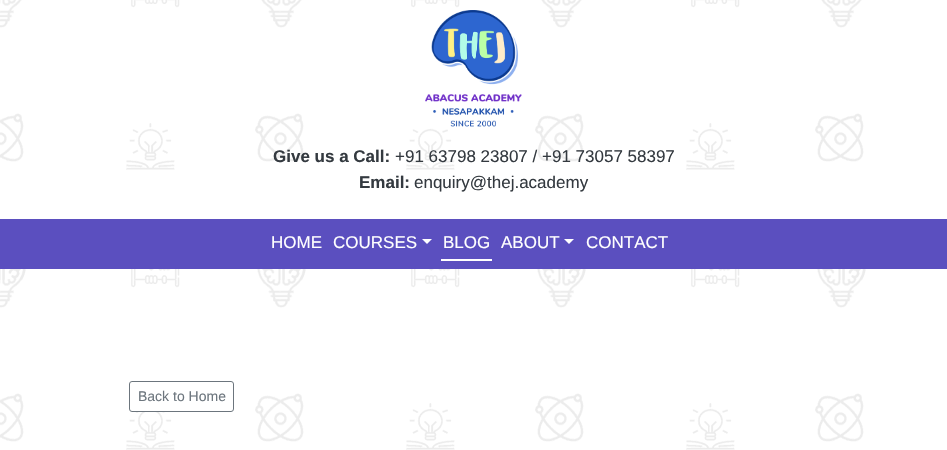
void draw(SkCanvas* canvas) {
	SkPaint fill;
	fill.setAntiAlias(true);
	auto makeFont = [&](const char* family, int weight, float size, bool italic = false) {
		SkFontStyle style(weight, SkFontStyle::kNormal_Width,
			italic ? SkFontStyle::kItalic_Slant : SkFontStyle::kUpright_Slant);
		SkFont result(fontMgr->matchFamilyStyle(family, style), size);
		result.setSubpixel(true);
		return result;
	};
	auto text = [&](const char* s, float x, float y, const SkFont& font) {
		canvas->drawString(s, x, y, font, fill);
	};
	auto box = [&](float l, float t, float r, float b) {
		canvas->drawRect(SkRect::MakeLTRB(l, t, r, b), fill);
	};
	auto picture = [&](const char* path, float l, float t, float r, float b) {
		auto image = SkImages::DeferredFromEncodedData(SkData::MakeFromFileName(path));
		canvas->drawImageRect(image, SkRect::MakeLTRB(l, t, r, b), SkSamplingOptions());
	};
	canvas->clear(0xFFFFFFFF);
	picture("image0.png", 0, 0, 866, 450);
	fill.setColor(0xFFFFFFFF);
	box(429, 123, 432, 128);
	picture("image1.png", 425, 10, 522, 127);
	fill.setColor(0xFF5B4FBF);
	box(0, 219, 947, 269);
	fill.setColor(0xFFFFFFFF);
	canvas->drawPath(SkPathBuilder().moveTo(422, 239).lineTo(432, 239).lineTo(427, 244).close().detach(), fill);
	box(441, 259, 492, 261);
	canvas->drawPath(SkPathBuilder().moveTo(564, 239).lineTo(574, 239).lineTo(569, 244).close().detach(), fill);
	canvas->drawRoundRect(SkRect::MakeLTRB(129.5f, 381.5f, 233.5f, 411.5f), 2.5f, 2.5f, fill);
	fill.setStyle(SkPaint::kStroke_Style);
	fill.setStrokeWidth(1);
	fill.setColor(0xFF6C757D);
	canvas->drawRoundRect(SkRect::MakeLTRB(129.5f, 381.5f, 233.5f, 411.5f), 2.5f, 2.5f, fill);
	auto font1 = makeFont("Liberation Sans", 700, 17);
	fill.setStyle(SkPaint::kFill_Style);
	fill.setColor(0xFF343A40);
	text("Give us a Call:", 273, 162, font1);
	auto font2 = makeFont("Liberation Sans", 400, 17);
	text("+91 63798 23807 / +91 73057 58397", 395, 162, font2);
	text("Email:", 359, 188, font1);
	text("enquiry@thej.academy", 414, 188, font2);
	fill.setColor(0xFFFFFFFF);
	text("HOME", 271, 248, font2);
	text("COURSES", 333, 248, font2);
	text("BLOG", 443, 248, font2);
	text("ABOUT", 501, 248, font2);
	text("CONTACT", 586, 248, font2);
	auto font3 = makeFont("Liberation Sans", 400, 14);
	fill.setColor(0xFF6C757D);
	text("Back to Home", 138, 401, font3);
}
